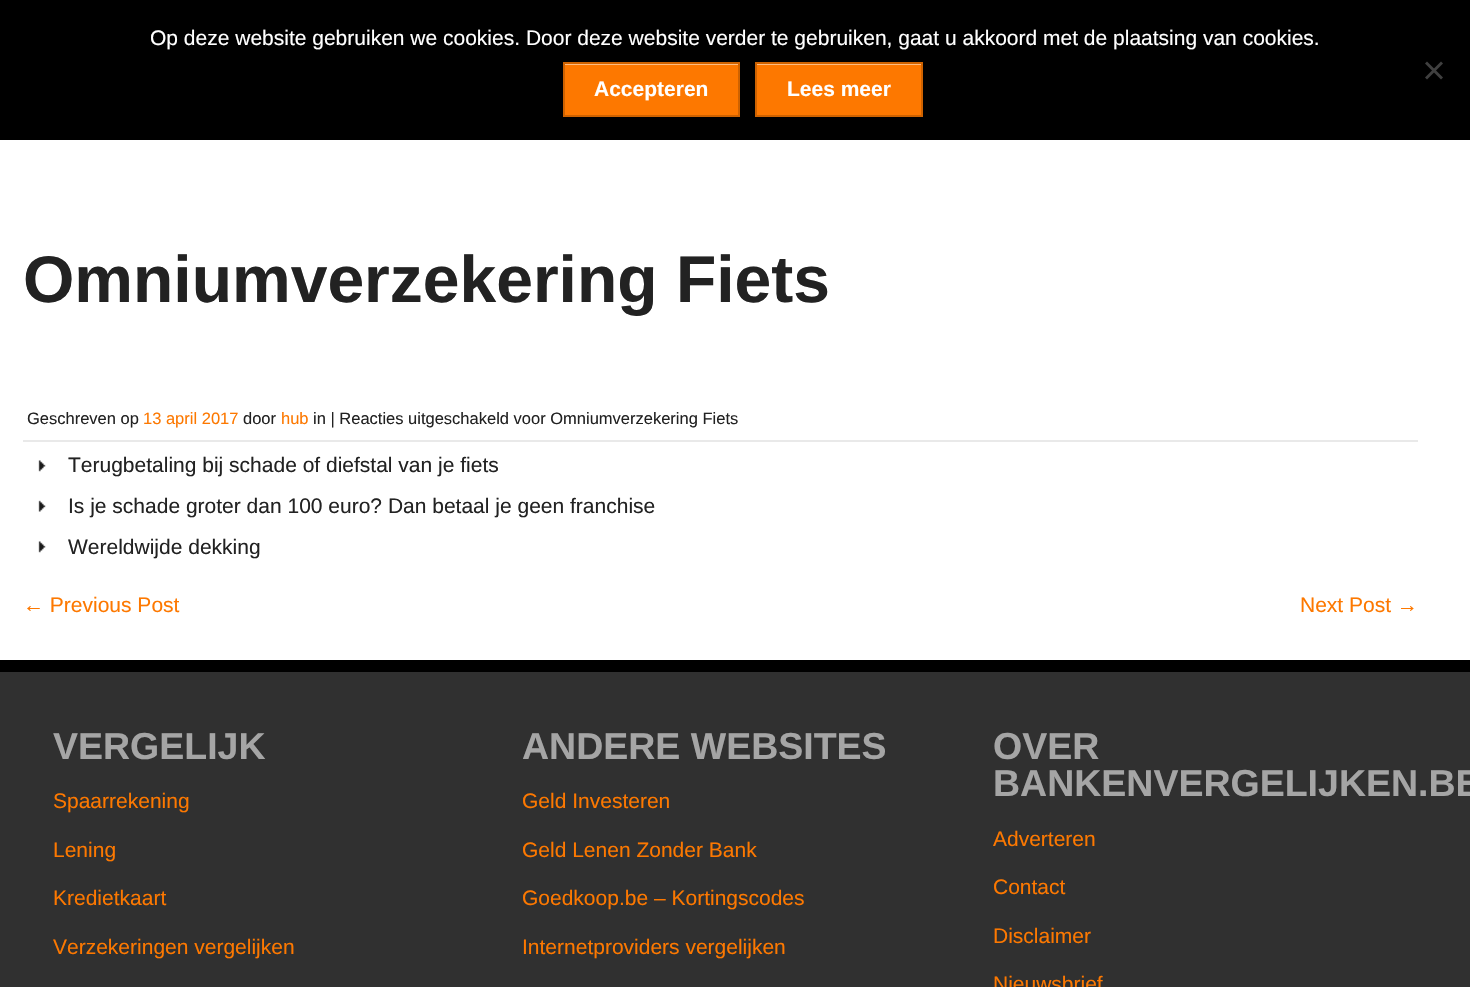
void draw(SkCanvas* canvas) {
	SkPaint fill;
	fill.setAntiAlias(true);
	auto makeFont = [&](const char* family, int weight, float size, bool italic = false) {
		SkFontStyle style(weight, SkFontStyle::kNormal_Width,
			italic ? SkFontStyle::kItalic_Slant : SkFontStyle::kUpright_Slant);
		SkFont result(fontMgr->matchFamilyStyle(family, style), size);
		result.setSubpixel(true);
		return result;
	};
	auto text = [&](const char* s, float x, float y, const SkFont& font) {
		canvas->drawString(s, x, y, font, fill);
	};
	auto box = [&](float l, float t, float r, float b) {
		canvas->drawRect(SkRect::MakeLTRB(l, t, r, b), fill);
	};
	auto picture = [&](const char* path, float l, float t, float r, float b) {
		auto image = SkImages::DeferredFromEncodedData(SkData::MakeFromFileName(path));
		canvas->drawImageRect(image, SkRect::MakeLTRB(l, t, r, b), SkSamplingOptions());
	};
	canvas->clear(0xFFFFFFFF);
	fill.setColor(0xFF000000);
	box(0, 0, 1470, 140);
	fill.setColor(0xFF404040);
	canvas->drawPath(SkPathBuilder().moveTo(1441, 61.5f).lineTo(1443, 63.5f).lineTo(1427, 79.5f).lineTo(1425, 77.5f).close().detach(), fill);
	canvas->drawPath(SkPathBuilder().moveTo(1425, 63.5f).lineTo(1427, 61.5f).lineTo(1443, 77.5f).lineTo(1441, 79.5f).close().detach(), fill);
	fill.setColor(0xFFFD7800);
	box(565, 65, 738, 115);
	fill.setColor(0xFFFEBC80);
	box(564, 64, 738, 65);
	fill.setStyle(SkPaint::kStroke_Style);
	fill.setStrokeWidth(2);
	fill.setColor(0xFFCE6200);
	canvas->drawRect(SkRect::MakeLTRB(564, 63, 739, 116), fill);
	fill.setStyle(SkPaint::kFill_Style);
	fill.setColor(0xFFFD7800);
	box(757, 65, 921, 115);
	fill.setColor(0xFFFEBC80);
	box(756, 64, 921, 65);
	fill.setStyle(SkPaint::kStroke_Style);
	fill.setColor(0xFFCE6200);
	canvas->drawRect(SkRect::MakeLTRB(756, 63, 922, 116), fill);
	fill.setStyle(SkPaint::kFill_Style);
	fill.setColor(0xFFE9E9E9);
	box(23, 440, 1418, 442);
	picture("image0.png", 38, 460, 46, 472);
	picture("image1.png", 38, 500, 46, 512);
	picture("image0.png", 38, 541, 46, 553);
	fill.setColor(0xFF303030);
	box(0, 672, 1470, 987);
	fill.setColor(0xFF000000);
	box(0, 660, 1470, 672);
	auto font1 = makeFont("Liberation Sans", 400, 21);
	fill.setColor(0xFFFFFFFF);
	text("Op deze website gebruiken we cookies. Door deze website verder te gebruiken, gaat u akkoord met de plaatsing van cookies.", 150, 45, font1);
	auto font2 = makeFont("Liberation Sans", 700, 21);
	text("Accepteren", 594, 96, font2);
	text("Lees meer", 787, 96, font2);
	auto font3 = makeFont("Liberation Sans", 700, 66);
	fill.setColor(0xFF222222);
	text("Omniumverzekering Fiets", 23, 302, font3);
	auto font4 = makeFont("Liberation Sans", 400, 16.5f);
	text("Geschreven op", 27, 424, font4);
	fill.setColor(0xFFFD7800);
	text("13 april 2017", 143, 424, font4);
	fill.setColor(0xFF222222);
	text("door", 243, 424, font4);
	fill.setColor(0xFFFD7800);
	text("hub", 281, 424, font4);
	fill.setColor(0xFF222222);
	text("in | Reacties uitgeschakeld voor Omniumverzekering Fiets", 313, 424, font4);
	text("Terugbetaling bij schade of diefstal van je fiets", 68, 472, font1);
	text("Is je schade groter dan 100 euro? Dan betaal je geen franchise", 68, 513, font1);
	text("Wereldwijde dekking", 68, 554, font1);
	fill.setColor(0xFFFD7800);
	text("← Previous Post", 23, 612, font1);
	text("Next Post →", 1300, 612, font1);
	auto font5 = makeFont("Liberation Sans", 700, 37.5f);
	fill.setColor(0xFFA5A5A5);
	text("VERGELIJK", 53, 759, font5);
	fill.setColor(0xFFFD7800);
	text("Spaarrekening", 53, 808, font1);
	text("Lening", 53, 857, font1);
	text("Kredietkaart", 53, 905, font1);
	text("Verzekeringen vergelijken", 53, 954, font1);
	fill.setColor(0xFFA5A5A5);
	text("ANDERE WEBSITES", 522, 759, font5);
	fill.setColor(0xFFFD7800);
	text("Geld Investeren", 522, 808, font1);
	text("Geld Lenen Zonder Bank", 522, 857, font1);
	text("Goedkoop.be – Kortingscodes", 522, 905, font1);
	text("Internetproviders vergelijken", 522, 954, font1);
	fill.setColor(0xFFA5A5A5);
	text("OVER", 993, 759, font5);
	text("BANKENVERGELIJKEN.BE", 993, 796, font5);
	fill.setColor(0xFFFD7800);
	text("Adverteren", 993, 846, font1);
	text("Contact", 993, 894, font1);
	text("Disclaimer", 993, 943, font1);
	text("Nieuwsbrief", 993, 991, font1);
}
